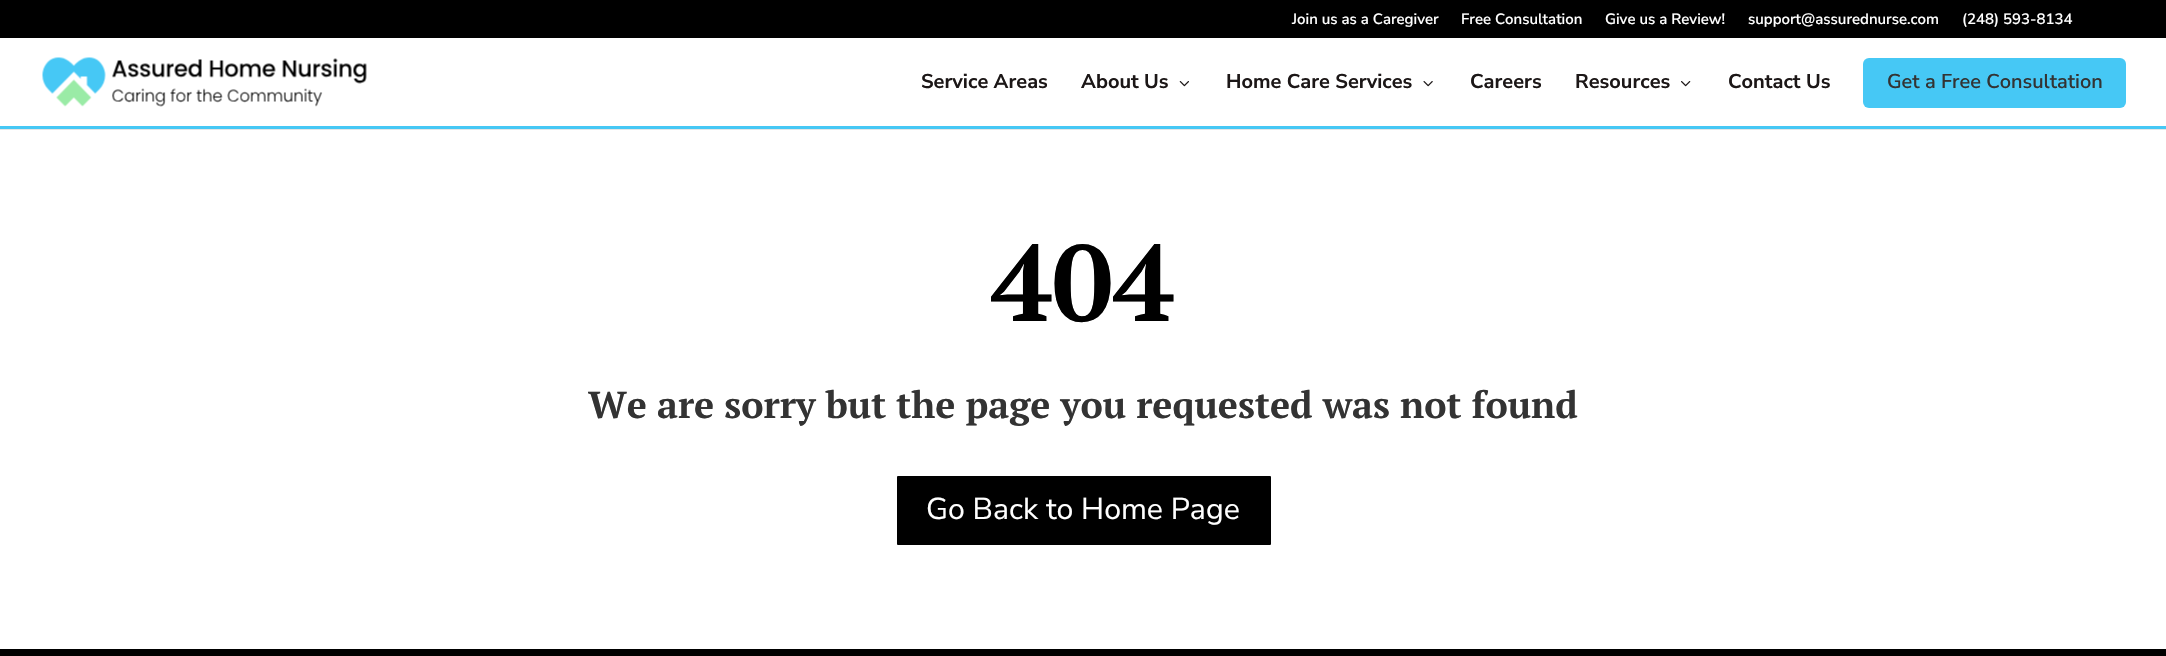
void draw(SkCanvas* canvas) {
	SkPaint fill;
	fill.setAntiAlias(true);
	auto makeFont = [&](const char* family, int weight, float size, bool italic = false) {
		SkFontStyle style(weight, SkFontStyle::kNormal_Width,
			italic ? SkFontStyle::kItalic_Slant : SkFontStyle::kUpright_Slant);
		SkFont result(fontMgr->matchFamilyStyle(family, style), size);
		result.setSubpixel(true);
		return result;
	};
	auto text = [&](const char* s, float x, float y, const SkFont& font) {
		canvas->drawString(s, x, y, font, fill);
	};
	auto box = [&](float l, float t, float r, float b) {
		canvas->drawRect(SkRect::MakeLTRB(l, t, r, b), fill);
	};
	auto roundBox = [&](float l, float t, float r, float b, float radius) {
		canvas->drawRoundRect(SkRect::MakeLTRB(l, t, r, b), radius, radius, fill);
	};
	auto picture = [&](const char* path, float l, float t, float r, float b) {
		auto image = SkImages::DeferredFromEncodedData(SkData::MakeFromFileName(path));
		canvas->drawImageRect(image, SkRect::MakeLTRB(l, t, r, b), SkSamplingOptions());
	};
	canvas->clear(0xFFFFFFFF);
	fill.setColor(0xFF000000);
	box(0, 0, 2166, 38);
	fill.setColor(0xFFE6E6E6);
	box(0, 129, 2166, 130);
	fill.setColor(0xFF46C8F5);
	box(0, 126, 2166, 129);
	picture("image0.png", 42, 57, 367, 107);
	picture("image1.png", 1179, 81, 1189, 87);
	picture("image2.png", 1423, 81, 1433, 87);
	picture("image3.png", 1681, 81, 1691, 87);
	roundBox(1863, 58, 2126, 108, 6);
	fill.setColor(0xFF000000);
	canvas->drawRoundRect(SkRect::MakeLTRB(895.5f, 474.5f, 1272.5f, 546.5f), 2.5f, 2.5f, fill);
	fill.setStyle(SkPaint::kStroke_Style);
	fill.setStrokeWidth(3);
	fill.setColor(0xFFFFFFFF);
	canvas->drawRoundRect(SkRect::MakeLTRB(895.5f, 474.5f, 1272.5f, 546.5f), 2.5f, 2.5f, fill);
	fill.setStyle(SkPaint::kFill_Style);
	fill.setColor(0xFF000000);
	box(0, 649, 2166, 656);
	auto font1 = makeFont("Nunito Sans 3", 200, 15);
	fill.setColor(0xFFFFFFFF);
	text("Join us as a Caregiver", 1292, 24, font1);
	text("Free Consultation", 1461, 24, font1);
	text("Give us a Review!", 1605, 24, font1);
	text("support@assurednurse.com", 1748, 24, font1);
	text("(248) 593-8134", 1962, 24, font1);
	auto font2 = makeFont("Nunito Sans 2", 200, 20);
	fill.setColor(0xFF1C1717);
	text("Service Areas", 921, 88, font2);
	text("About Us", 1081, 88, font2);
	text("Home Care Services", 1226, 88, font2);
	text("Careers", 1470, 88, font2);
	text("Resources", 1575, 88, font2);
	text("Contact Us", 1728, 88, font2);
	auto font3 = makeFont("Nunito Sans 3", 200, 20);
	fill.setColor(0xFF333333);
	text("Get a Free Consultation", 1887, 88, font3);
	auto font4 = makeFont("PT Serif", 700, 108);
	fill.setColor(0xFF000000);
	text("404", 991, 321, font4);
	auto font5 = makeFont("PT Serif", 700, 37.5f);
	fill.setColor(0xFF333333);
	text("We are sorry but the page you requested was not found", 588, 418, font5);
	auto font6 = makeFont("Nunito Sans", 200, 30.25f);
	fill.setColor(0xFFFFFFFF);
	text("Go Back to Home Page", 926, 519, font6);
}
